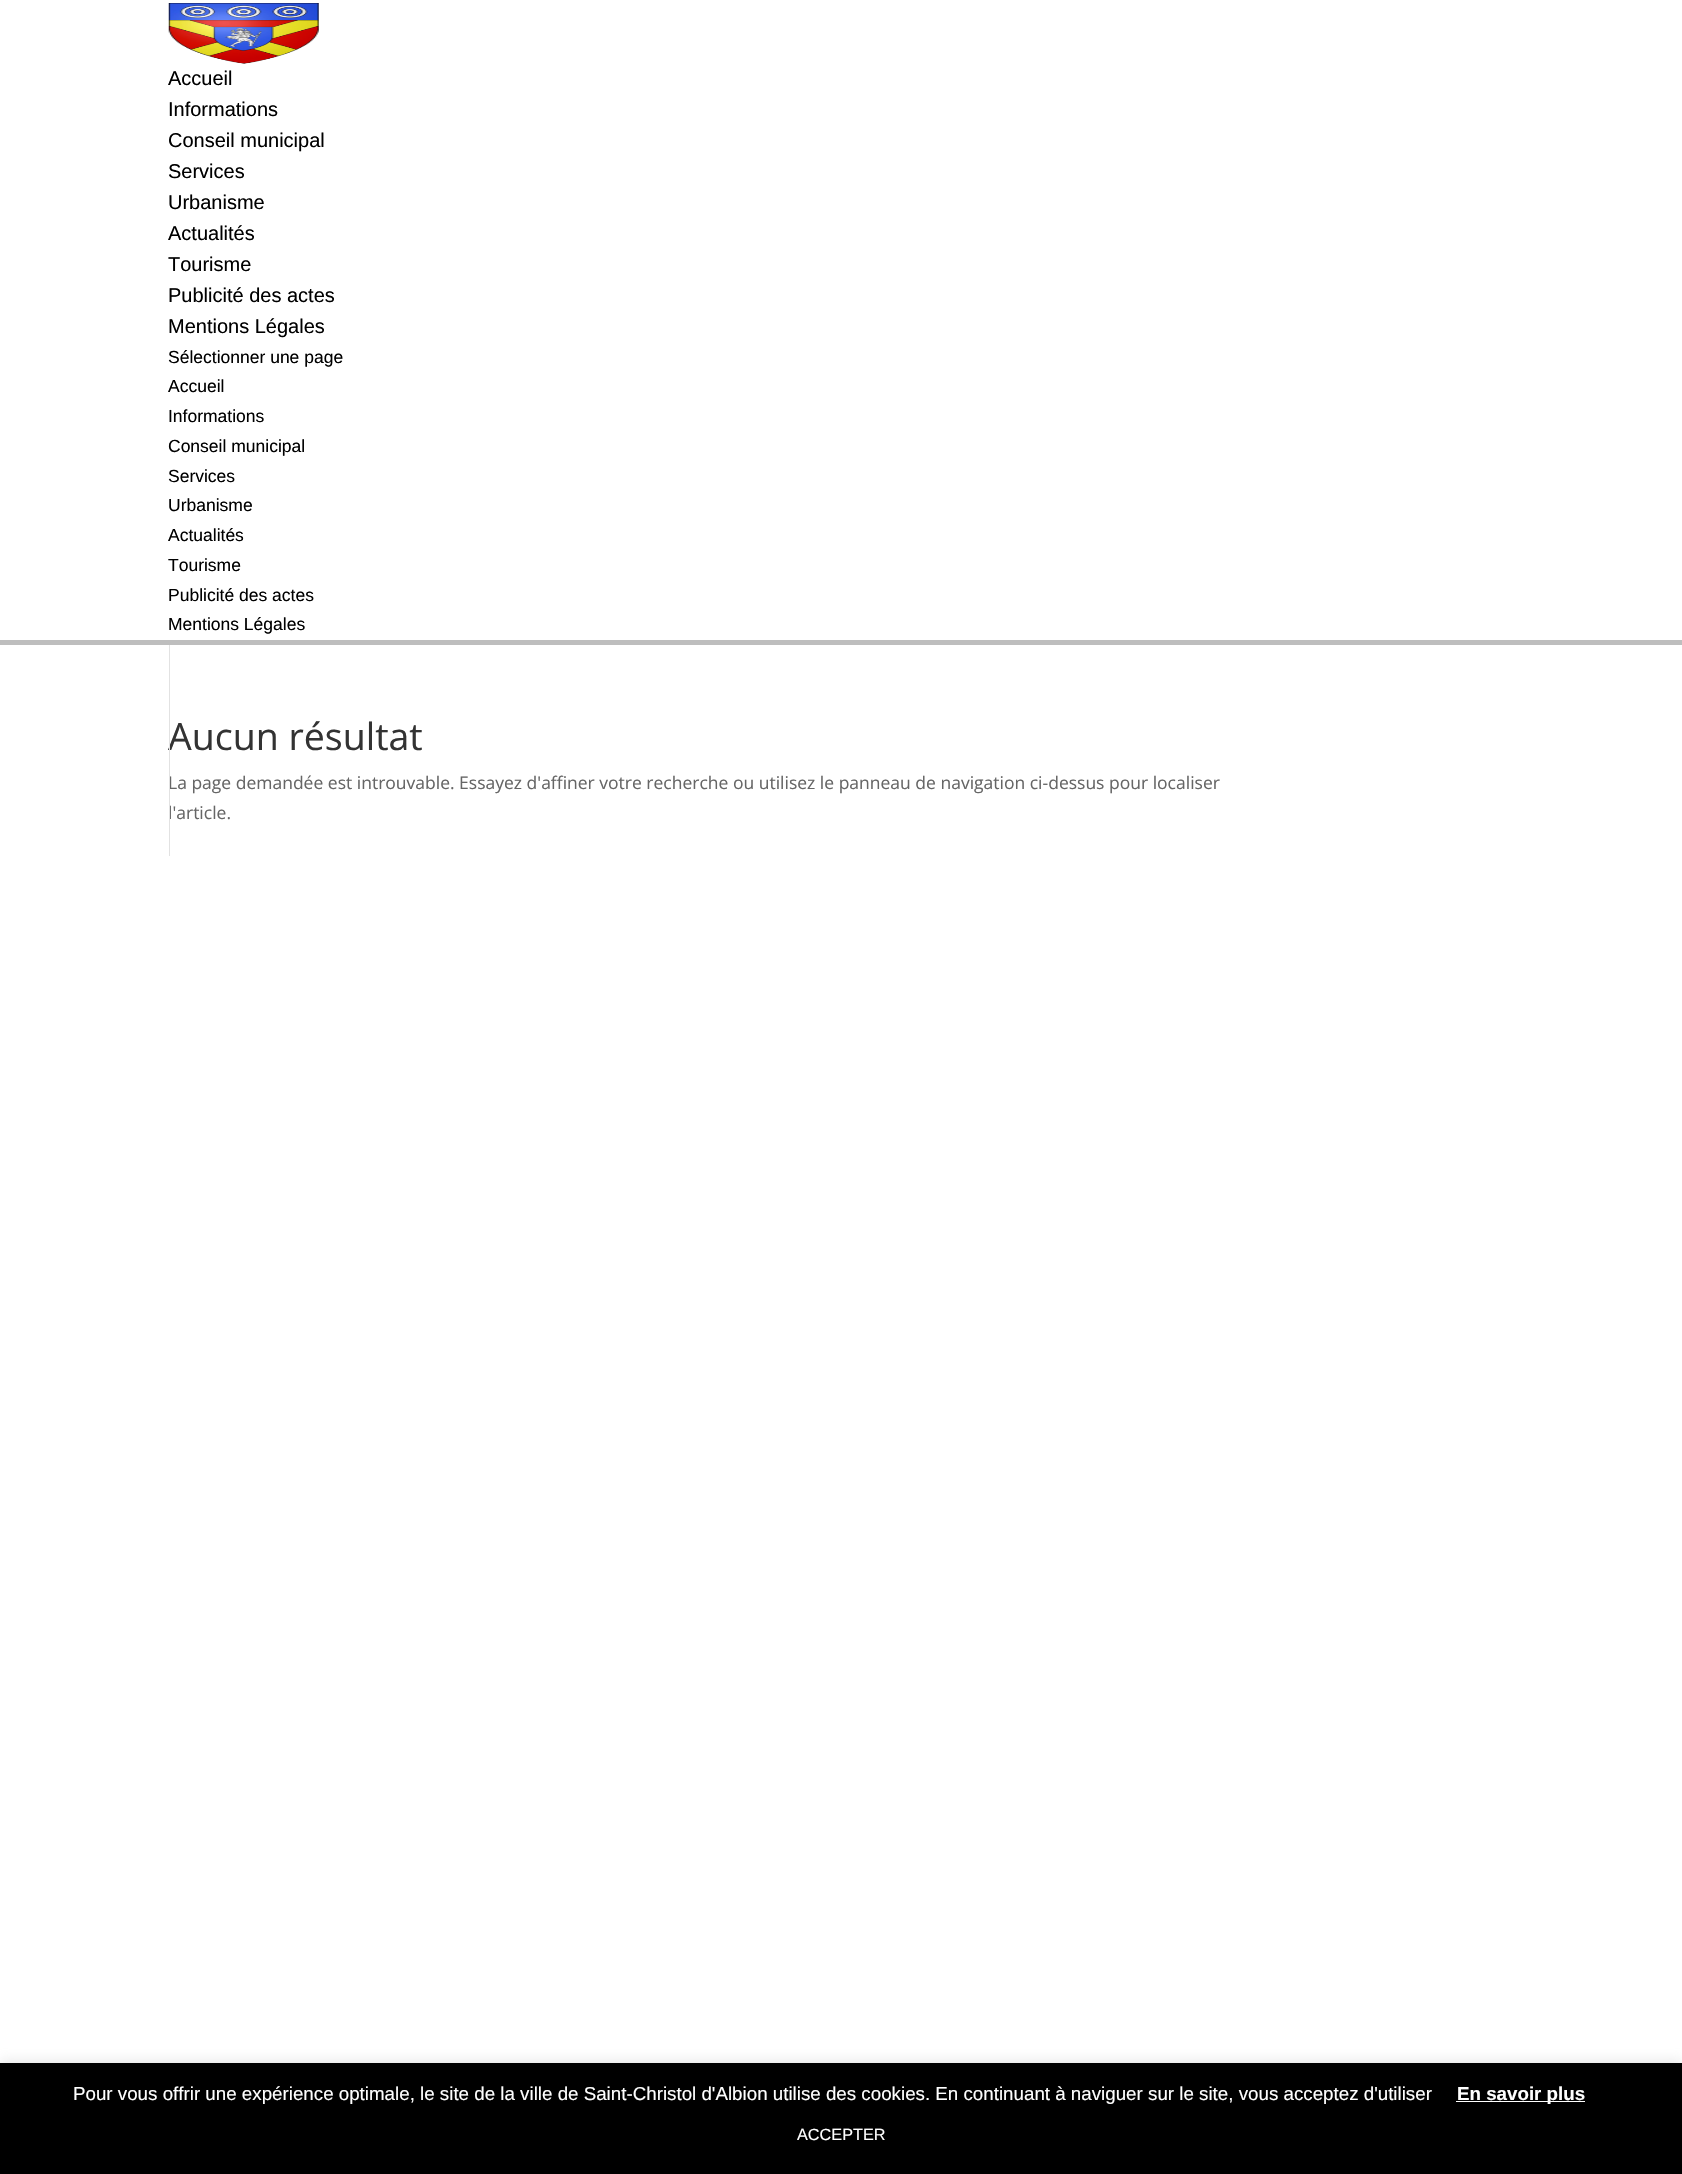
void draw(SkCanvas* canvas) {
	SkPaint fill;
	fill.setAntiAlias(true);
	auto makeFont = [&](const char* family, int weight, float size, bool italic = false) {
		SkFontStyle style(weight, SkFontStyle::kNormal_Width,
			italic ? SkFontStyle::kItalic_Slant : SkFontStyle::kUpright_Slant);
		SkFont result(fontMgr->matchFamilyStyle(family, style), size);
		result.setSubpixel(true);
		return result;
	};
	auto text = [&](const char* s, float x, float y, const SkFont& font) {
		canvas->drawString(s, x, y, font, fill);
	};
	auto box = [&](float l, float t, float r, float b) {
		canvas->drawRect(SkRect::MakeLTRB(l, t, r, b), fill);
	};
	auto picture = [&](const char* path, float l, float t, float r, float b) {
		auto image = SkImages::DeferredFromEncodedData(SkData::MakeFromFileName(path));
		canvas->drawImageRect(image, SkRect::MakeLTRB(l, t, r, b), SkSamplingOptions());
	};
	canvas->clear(0xFFFFFFFF);
	fill.setColor(0xFFBEBEBE);
	box(0, 640, 1682, 645);
	picture("image0.png", 168, 3, 319, 64);
	fill.setColor(0x4DACABAB);
	fill.setMaskFilter(SkMaskFilter::MakeBlur(kNormal_SkBlurStyle, 6));
	canvas->drawRect(SkRect::MakeLTRB(0, 2061, 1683, 2174), fill);
	fill.setMaskFilter(nullptr);
	fill.setColor(0xFF000000);
	box(0, 2063, 1682, 2174);
	fill.setColor(0xFFFFFFFF);
	box(1456, 2101, 1585, 2102);
	auto font1 = makeFont("Liberation Sans", 400, 20);
	fill.setColor(0xFF000000);
	text("Accueil", 168, 85, font1);
	text("Informations", 168, 116, font1);
	text("Conseil municipal", 168, 147, font1);
	text("Services", 168, 178, font1);
	text("Urbanisme", 168, 209, font1);
	text("Actualités", 168, 240, font1);
	text("Tourisme", 168, 271, font1);
	text("Publicité des actes", 168, 302, font1);
	text("Mentions Légales", 168, 333, font1);
	auto font2 = makeFont("Liberation Sans", 400, 17.5f);
	text("Sélectionner une page", 168, 363, font2);
	text("Accueil", 168, 392, font2);
	text("Informations", 168, 422, font2);
	text("Conseil municipal", 168, 452, font2);
	text("Services", 168, 482, font2);
	text("Urbanisme", 168, 511, font2);
	text("Actualités", 168, 541, font2);
	text("Tourisme", 168, 571, font2);
	text("Publicité des actes", 168, 601, font2);
	text("Mentions Légales", 168, 630, font2);
	auto font3 = makeFont("Open Sans", 400, 37.5f);
	fill.setColor(0xFF333333);
	text("Aucun résultat", 168, 750, font3);
	auto font4 = makeFont("Open Sans", 400, 17.5f);
	fill.setColor(0xFF666666);
	text("La page demandée est introuvable. Essayez d'affiner votre recherche ou utilisez le panneau de navigation ci-dessus pour localiser", 168, 789, font4);
	text("l'article.", 168, 819, font4);
	fill.setColor(0xFFE2E2E2);
	box(169, 645, 170, 856);
	auto font5 = makeFont("Liberation Sans", 400, 18.75f);
	fill.setColor(0xFFFFFFFF);
	text("Pour vous offrir une expérience optimale, le site de la ville de Saint-Christol d'Albion utilise des cookies. En continuant à naviguer sur le site, vous acceptez d'utiliser", 73, 2100, font5);
	auto font6 = makeFont("Liberation Sans", 700, 18.75f);
	text("En savoir plus", 1457, 2100, font6);
	auto font7 = makeFont("Liberation Sans", 400, 16.25f);
	text("ACCEPTER", 797, 2140, font7);
}
